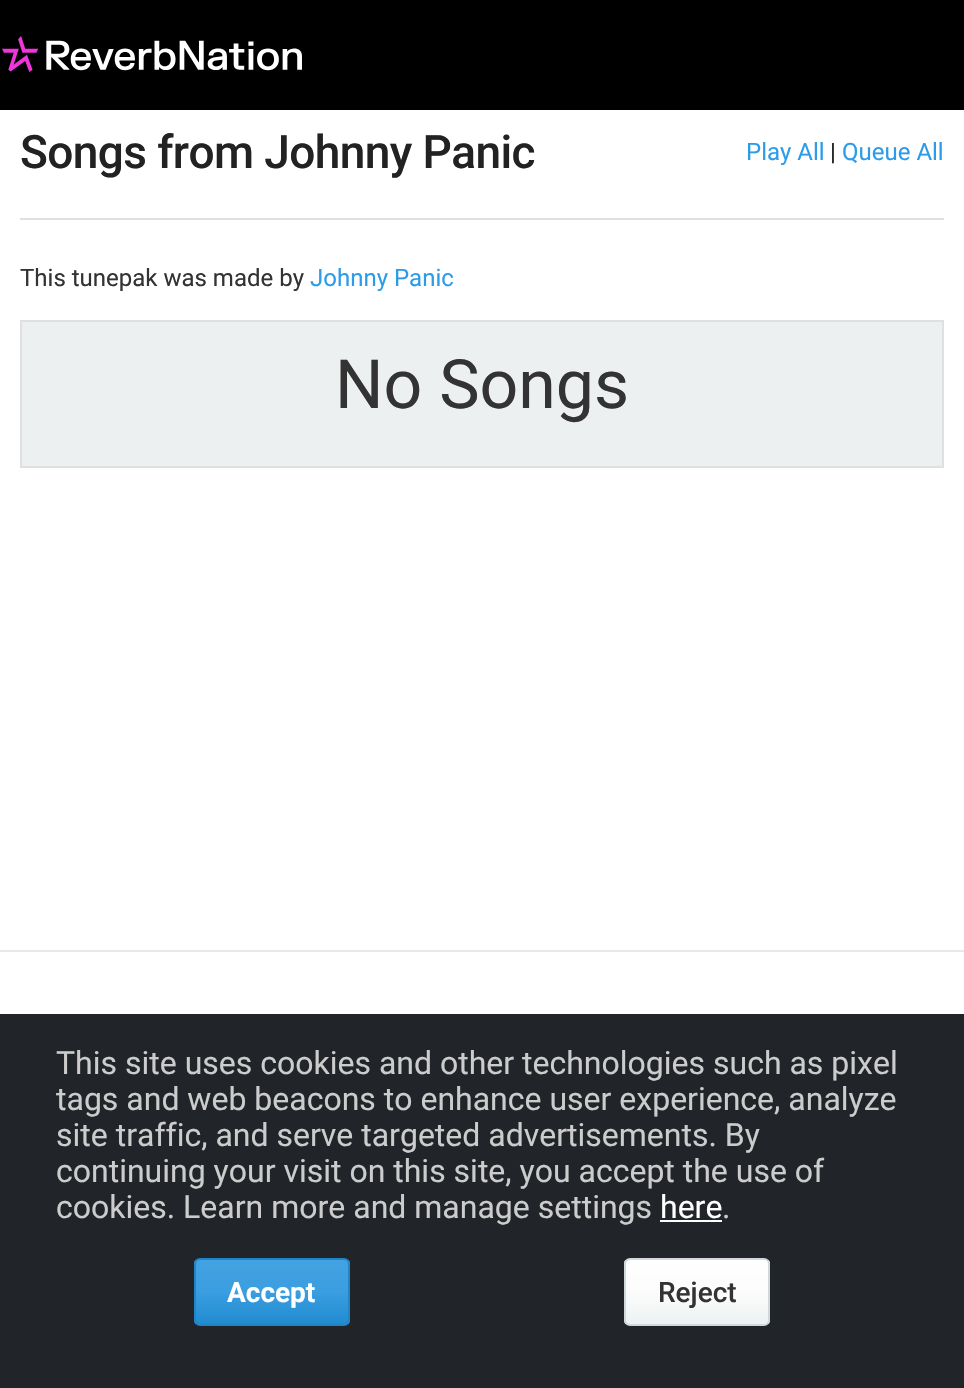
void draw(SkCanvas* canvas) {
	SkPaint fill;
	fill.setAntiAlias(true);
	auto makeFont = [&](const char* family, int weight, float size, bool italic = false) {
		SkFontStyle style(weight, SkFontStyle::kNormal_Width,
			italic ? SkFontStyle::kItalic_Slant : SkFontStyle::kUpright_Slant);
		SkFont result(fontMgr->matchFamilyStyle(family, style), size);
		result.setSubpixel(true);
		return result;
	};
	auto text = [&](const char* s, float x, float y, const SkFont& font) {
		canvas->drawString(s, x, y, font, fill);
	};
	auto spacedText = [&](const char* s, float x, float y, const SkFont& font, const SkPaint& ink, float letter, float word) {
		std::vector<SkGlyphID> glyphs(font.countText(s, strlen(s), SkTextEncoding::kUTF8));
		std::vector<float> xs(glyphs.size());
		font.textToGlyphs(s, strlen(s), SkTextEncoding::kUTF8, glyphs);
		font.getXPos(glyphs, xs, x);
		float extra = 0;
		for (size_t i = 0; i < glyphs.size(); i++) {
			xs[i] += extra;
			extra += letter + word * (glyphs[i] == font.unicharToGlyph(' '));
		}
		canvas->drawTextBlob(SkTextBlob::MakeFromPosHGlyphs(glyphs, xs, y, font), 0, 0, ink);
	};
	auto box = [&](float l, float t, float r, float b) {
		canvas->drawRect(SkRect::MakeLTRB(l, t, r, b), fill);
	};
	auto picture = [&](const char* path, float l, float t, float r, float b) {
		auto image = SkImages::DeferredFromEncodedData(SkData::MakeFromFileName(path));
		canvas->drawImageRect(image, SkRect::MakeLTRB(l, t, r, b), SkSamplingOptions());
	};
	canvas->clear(0xFFFFFFFF);
	fill.setStyle(SkPaint::kStroke_Style);
	fill.setStrokeWidth(2);
	fill.setColor(0xFFE8E8E8);
	canvas->drawRect(SkRect::MakeLTRB(-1, 109, 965, 951), fill);
	fill.setStyle(SkPaint::kFill_Style);
	fill.setColor(0xFF000000);
	box(0, 0, 964, 110);
	picture("image0.png", 2, 36, 302, 72);
	fill.setColor(0xFFDFE0E1);
	box(20, 218, 944, 220);
	fill.setColor(0xFFEDF0F1);
	canvas->drawRect(SkRect::MakeLTRB(21, 321, 943, 467), fill);
	fill.setStyle(SkPaint::kStroke_Style);
	fill.setColor(0xFFDFE0E1);
	canvas->drawRect(SkRect::MakeLTRB(21, 321, 943, 467), fill);
	fill.setStyle(SkPaint::kFill_Style);
	fill.setColor(0xFF212529);
	box(0, 1014, 964, 1388);
	fill.setColor(0xFFFFFFFF);
	box(660, 1220, 722, 1222);
	canvas->save();
	canvas->clipPath(SkPathBuilder().moveTo(200, 1258).lineTo(344, 1258).cubicTo(347.5f, 1258, 350, 1260.5f, 350, 1264).lineTo(350, 1320).cubicTo(350, 1323.5f, 347.5f, 1326, 344, 1326).lineTo(200, 1326).cubicTo(196.5f, 1326, 194, 1323.5f, 194, 1320).lineTo(194, 1264).cubicTo(194, 1260.5f, 196.5f, 1258, 200, 1258).close().detach(), true);
	{
		const SkColor colors[] = {0xFF43A2E1, 0xFF3A9EE0, 0xFF218BD0};
		const float stops[] = {0, 0.5f, 1};
		const SkPoint ends[] = {{272, 1260}, {272, 1324}};
		fill.setShader(SkGradientShader::MakeLinear(ends, colors, stops, 3, SkTileMode::kClamp));
		fill.setAlpha(255);
	}
	box(194, 1260, 350, 1324);
	canvas->restore();
	fill.setStyle(SkPaint::kStroke_Style);
	fill.setShader(nullptr);
	fill.setColor(0xFF1F85C8);
	canvas->drawRoundRect(SkRect::MakeLTRB(195, 1259, 349, 1325), 5, 5, fill);
	canvas->save();
	canvas->clipPath(SkPathBuilder().moveTo(630, 1258).lineTo(764, 1258).cubicTo(767.5f, 1258, 770, 1260.5f, 770, 1264).lineTo(770, 1320).cubicTo(770, 1323.5f, 767.5f, 1326, 764, 1326).lineTo(630, 1326).cubicTo(626.5f, 1326, 624, 1323.5f, 624, 1320).lineTo(624, 1264).cubicTo(624, 1260.5f, 626.5f, 1258, 630, 1258).close().detach(), true);
	fill.setStyle(SkPaint::kFill_Style);
	{
		const SkColor colors[] = {0xFFFFFFFF, 0xFFFCFCFC, 0xFFEDF1F2};
		const float stops[] = {0, 0.5f, 1};
		const SkPoint ends[] = {{697, 1260}, {697, 1324}};
		fill.setShader(SkGradientShader::MakeLinear(ends, colors, stops, 3, SkTileMode::kClamp));
		fill.setAlpha(255);
	}
	box(624, 1260, 770, 1324);
	canvas->restore();
	fill.setStyle(SkPaint::kStroke_Style);
	fill.setShader(nullptr);
	fill.setColor(0xFFD0D8DB);
	canvas->drawRoundRect(SkRect::MakeLTRB(625, 1259, 769, 1325), 5, 5, fill);
	auto font1 = makeFont("Roboto", 500, 46);
	fill.setStyle(SkPaint::kFill_Style);
	fill.setColor(0xFF222222);
	spacedText("Songs from Johnny Panic", 20, 168, font1, fill, -0.6f, 0);
	auto font2 = makeFont("Roboto", 400, 24);
	fill.setColor(0xFF2C9CE9);
	text("Play All", 746, 160, font2);
	fill.setColor(0xFF222222);
	text("|", 830, 160, font2);
	fill.setColor(0xFF2C9CE9);
	text("Queue All", 842, 160, font2);
	fill.setColor(0xFF333333);
	text("This tunepak was made by", 20, 286, font2);
	fill.setColor(0xFF2C9CE9);
	text("Johnny Panic", 310, 286, font2);
	auto font3 = makeFont("Roboto", 400, 68);
	fill.setColor(0xFF333333);
	text("No Songs", 335, 408, font3);
	auto font4 = makeFont("Roboto", 400, 32);
	fill.setColor(0xFFCCCCCC);
	text("This site uses cookies and other technologies such as pixel", 56, 1074, font4);
	text("tags and web beacons to enhance user experience, analyze", 56, 1110, font4);
	text("site traffic, and serve targeted advertisements. By", 56, 1146, font4);
	text("continuing your visit on this site, you accept the use of", 56, 1182, font4);
	text("cookies. Learn more and manage settings", 56, 1218, font4);
	fill.setColor(0xFFFFFFFF);
	text("here", 660, 1218, font4);
	fill.setColor(0xFFCCCCCC);
	text(".", 722, 1218, font4);
	auto font5 = makeFont("Roboto", 700, 28);
	fill.setColor(0xFFFFFFFF);
	text("Accept", 227, 1302, font5);
	auto font6 = makeFont("Roboto", 500, 28);
	fill.setColor(0xFF333333);
	text("Reject", 658, 1302, font6);
}
